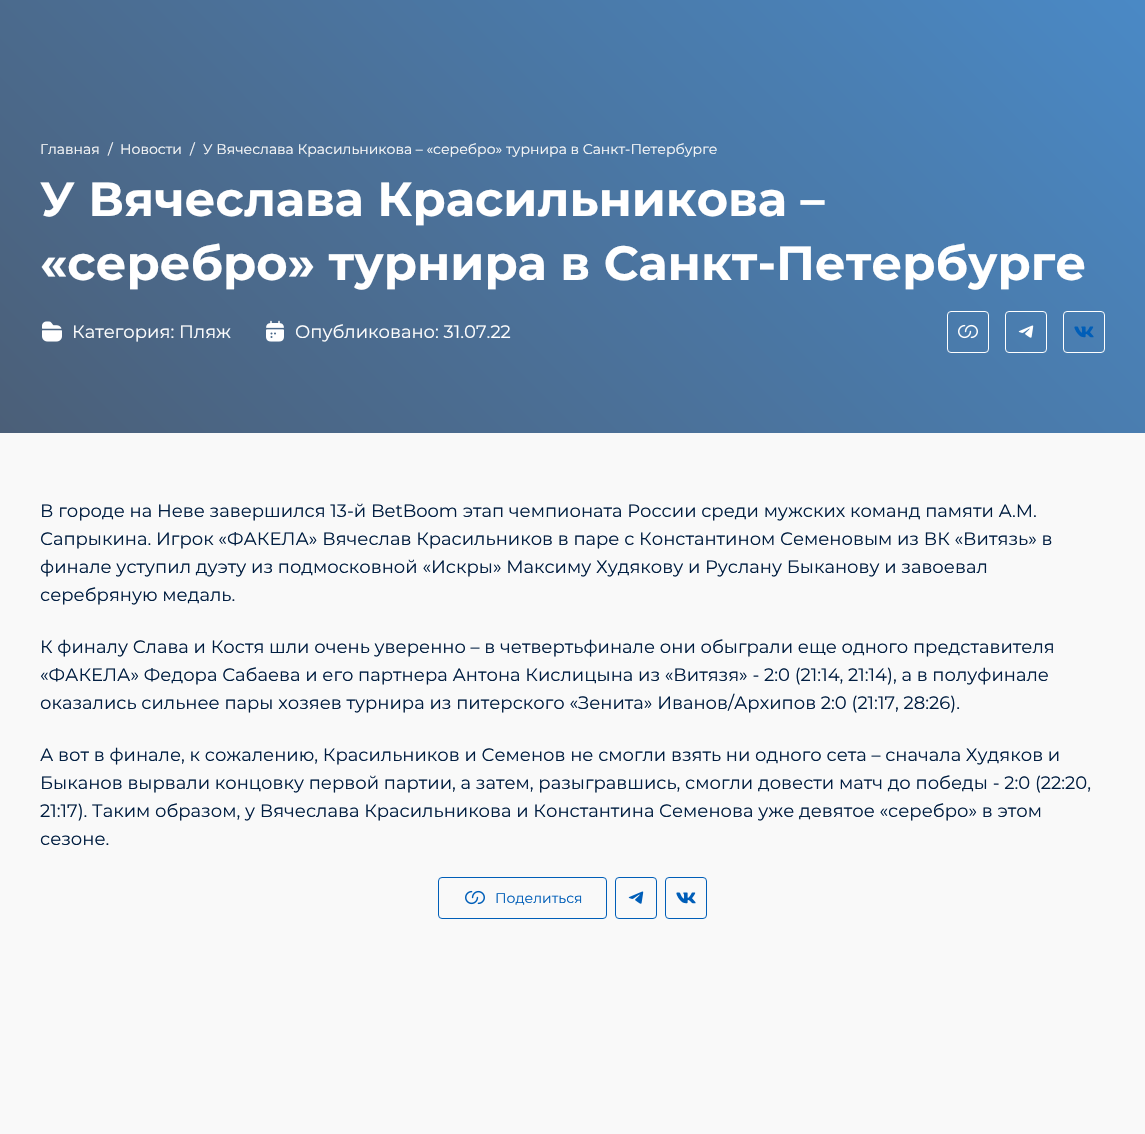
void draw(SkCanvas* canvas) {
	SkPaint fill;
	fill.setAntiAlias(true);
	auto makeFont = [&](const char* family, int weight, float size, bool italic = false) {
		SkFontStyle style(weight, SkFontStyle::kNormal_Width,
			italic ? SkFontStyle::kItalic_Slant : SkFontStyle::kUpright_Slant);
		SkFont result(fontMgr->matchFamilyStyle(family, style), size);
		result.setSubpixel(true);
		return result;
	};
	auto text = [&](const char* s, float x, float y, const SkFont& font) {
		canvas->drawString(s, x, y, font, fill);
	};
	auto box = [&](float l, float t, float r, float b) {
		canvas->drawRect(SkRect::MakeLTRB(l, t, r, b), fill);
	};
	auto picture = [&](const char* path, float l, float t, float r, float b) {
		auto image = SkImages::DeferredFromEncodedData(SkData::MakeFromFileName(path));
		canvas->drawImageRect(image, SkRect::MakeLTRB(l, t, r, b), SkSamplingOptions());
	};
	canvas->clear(0xFFF9F9F9);
	{
		const SkColor colors[] = {0xFF4B5F78, 0xFF4A8CCB};
		const float stops[] = {0, 1};
		const SkPoint ends[] = {{150, 583}, {995, -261}};
		fill.setShader(SkGradientShader::MakeLinear(ends, colors, stops, 2, SkTileMode::kClamp));
		fill.setAlpha(255);
	}
	box(0, 0, 1145, 433);
	picture("image0.png", 42, 321, 62, 342);
	picture("image1.png", 266, 320, 284, 342);
	fill.setStyle(SkPaint::kStroke_Style);
	fill.setStrokeWidth(1);
	fill.setShader(nullptr);
	fill.setColor(0xFFFFFFFF);
	canvas->drawRoundRect(SkRect::MakeLTRB(947.5f, 311.5f, 988.5f, 352.5f), 3.5f, 3.5f, fill);
	picture("image2.png", 958, 324, 978, 339);
	canvas->drawRoundRect(SkRect::MakeLTRB(1005.5f, 311.5f, 1046.5f, 352.5f), 3.5f, 3.5f, fill);
	picture("image3.png", 1018, 325, 1034, 338);
	canvas->drawRoundRect(SkRect::MakeLTRB(1063.5f, 311.5f, 1104.5f, 352.5f), 3.5f, 3.5f, fill);
	picture("image4.png", 1074, 326, 1094, 338);
	fill.setColor(0xFF005EB8);
	canvas->drawRoundRect(SkRect::MakeLTRB(438.5f, 877.5f, 606.5f, 918.5f), 3.5f, 3.5f, fill);
	picture("image5.png", 465, 890, 485, 905);
	canvas->drawRoundRect(SkRect::MakeLTRB(615.5f, 877.5f, 656.5f, 918.5f), 3.5f, 3.5f, fill);
	picture("image6.png", 628, 891, 644, 904);
	canvas->drawRoundRect(SkRect::MakeLTRB(665.5f, 877.5f, 706.5f, 918.5f), 3.5f, 3.5f, fill);
	picture("image7.png", 676, 892, 696, 904);
	auto font1 = makeFont("Montserrat", 400, 14);
	fill.setStyle(SkPaint::kFill_Style);
	fill.setColor(0xFFF9F9F9);
	text("Главная", 40, 154, font1);
	text("/", 108, 154, font1);
	text("Новости", 120, 154, font1);
	text("/", 190, 154, font1);
	text("У Вячеслава Красильникова – «серебро» турнира в Санкт-Петербурге", 203, 154, font1);
	auto font2 = makeFont("Montserrat", 700, 48);
	fill.setColor(0xFFFFFFFF);
	text("У Вячеслава Красильникова –", 40, 216, font2);
	text("«серебро» турнира в Санкт-Петербурге", 40, 280, font2);
	auto font3 = makeFont("Montserrat", 400, 18);
	text("Категория: Пляж", 72, 338, font3);
	text("Опубликовано: 31.07.22", 295, 338, font3);
	fill.setColor(0xFF011E41);
	text("В городе на Неве завершился 13-й BetBoom этап чемпионата России среди мужских команд памяти А.М.", 40, 517, font3);
	text("Сапрыкина. Игрок «ФАКЕЛА» Вячеслав Красильников в паре с Константином Семеновым из ВК «Витязь» в", 40, 545, font3);
	text("финале уступил дуэту из подмосковной «Искры» Максиму Худякову и Руслану Быканову и завоевал", 40, 573, font3);
	text("серебряную медаль.", 40, 601, font3);
	text("К финалу Слава и Костя шли очень уверенно – в четвертьфинале они обыграли еще одного представителя", 40, 653, font3);
	text("«ФАКЕЛА» Федора Сабаева и его партнера Антона Кислицына из «Витязя» - 2:0 (21:14, 21:14), а в полуфинале", 40, 681, font3);
	text("оказались сильнее пары хозяев турнира из питерского «Зенита» Иванов/Архипов 2:0 (21:17, 28:26).", 40, 709, font3);
	text("А вот в финале, к сожалению, Красильников и Семенов не смогли взять ни одного сета – сначала Худяков и", 40, 761, font3);
	text("Быканов вырвали концовку первой партии, а затем, разыгравшись, смогли довести матч до победы - 2:0 (22:20,", 40, 789, font3);
	text("21:17). Таким образом, у Вячеслава Красильникова и Константина Семенова уже девятое «серебро» в этом", 40, 817, font3);
	text("сезоне.", 40, 845, font3);
	fill.setColor(0xFF005EB8);
	text("Поделиться", 495, 903, font1);
}
